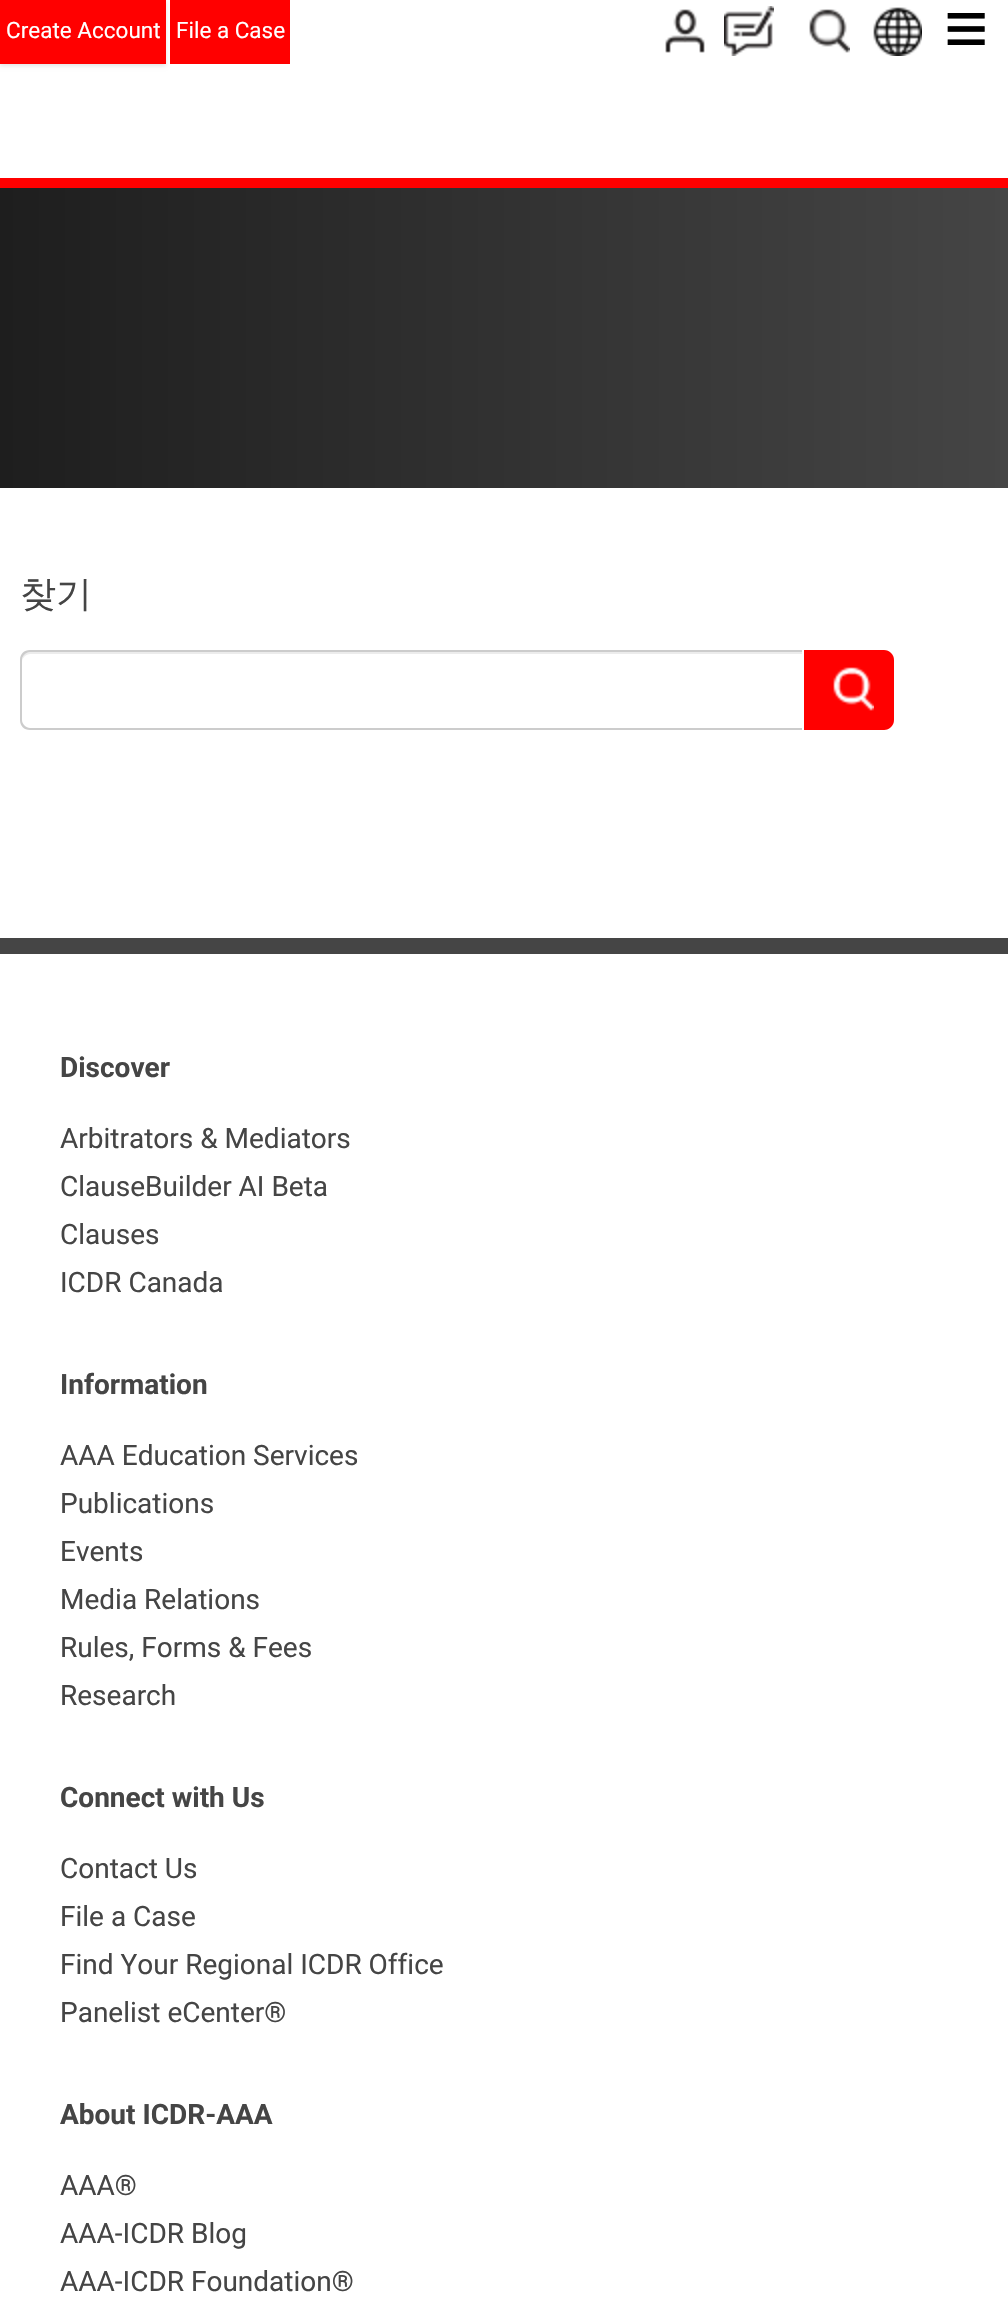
void draw(SkCanvas* canvas) {
	SkPaint fill;
	fill.setAntiAlias(true);
	auto makeFont = [&](const char* family, int weight, float size, bool italic = false) {
		SkFontStyle style(weight, SkFontStyle::kNormal_Width,
			italic ? SkFontStyle::kItalic_Slant : SkFontStyle::kUpright_Slant);
		SkFont result(fontMgr->matchFamilyStyle(family, style), size);
		result.setSubpixel(true);
		return result;
	};
	auto text = [&](const char* s, float x, float y, const SkFont& font) {
		canvas->drawString(s, x, y, font, fill);
	};
	auto box = [&](float l, float t, float r, float b) {
		canvas->drawRect(SkRect::MakeLTRB(l, t, r, b), fill);
	};
	auto picture = [&](const char* path, float l, float t, float r, float b) {
		auto image = SkImages::DeferredFromEncodedData(SkData::MakeFromFileName(path));
		canvas->drawImageRect(image, SkRect::MakeLTRB(l, t, r, b), SkSamplingOptions());
	};
	canvas->clear(0xFFFFFFFF);
	fill.setColor(0xFFFF0000);
	box(0, 178, 1008, 188);
	fill.setColor(0x1A000000);
	fill.setMaskFilter(SkMaskFilter::MakeBlur(kNormal_SkBlurStyle, 2));
	canvas->drawRect(SkRect::MakeLTRB(0, 2, 166, 66), fill);
	fill.setMaskFilter(nullptr);
	fill.setColor(0xFFFF0000);
	box(0, 0, 166, 64);
	box(170, 0, 290, 64);
	picture("image0.png", 665, 9, 705, 53);
	picture("image1.png", 724, 6, 774, 56);
	picture("image2.png", 809, 9, 850, 53);
	picture("image3.png", 873, 7, 922, 56);
	{
		const SkColor colors[] = {0xFF454545, 0xFF1E1E1E};
		const float stops[] = {0, 1};
		const SkPoint ends[] = {{1008, 338}, {0, 338}};
		fill.setShader(SkGradientShader::MakeLinear(ends, colors, stops, 2, SkTileMode::kClamp));
		fill.setAlpha(255);
	}
	box(0, 188, 1008, 488);
	fill.setShader(nullptr);
	fill.setColor(0xFFECECEC);
	canvas->drawPath(SkPathBuilder().moveTo(30, 654).lineTo(802, 654).lineTo(802, 652).lineTo(30, 652).cubicTo(24, 652, 22, 657, 22, 662).cubicTo(22, 658, 26, 654, 30, 654).close().detach(), fill);
	fill.setColor(0xFFCCCCCC);
	canvas->drawPath(SkPathBuilder(SkPathFillType::kEvenOdd).moveTo(30, 650).lineTo(802, 650).lineTo(802, 730).lineTo(30, 730).cubicTo(24, 730, 20, 726, 20, 720).lineTo(20, 660).cubicTo(20, 654, 24, 650, 30, 650).close().moveTo(30, 652).lineTo(802, 652).lineTo(802, 728).lineTo(30, 728).cubicTo(26, 728, 22, 724, 22, 720).lineTo(22, 660).cubicTo(22, 656, 26, 652, 30, 652).close().detach(), fill);
	fill.setColor(0xFFFF0000);
	canvas->drawPath(SkPathBuilder().moveTo(804, 650).lineTo(884, 650).cubicTo(889.5f, 650, 894, 654.5f, 894, 660).lineTo(894, 720).cubicTo(894, 725.5f, 889.5f, 730, 884, 730).lineTo(804, 730).close().detach(), fill);
	picture("image4.png", 833, 667, 874, 711);
	fill.setColor(0xFF454545);
	box(0, 938, 1008, 954);
	auto font1 = makeFont("Roboto", 400, 22.5f);
	fill.setColor(0xFFFFFFFF);
	text("Create Account", 6, 38, font1);
	text("File a Case", 176, 38, font1);
	auto font2 = makeFont("Liberation Sans", 400, 76);
	fill.setColor(0xFF000000);
	text("≡", 944, 54, font2);
	auto font3 = makeFont("WenQuanYi Zen Hei", 500, 36);
	fill.setColor(0xFF454545);
	text("찾기", 20, 606, font3);
	auto font4 = makeFont("Roboto", 700, 28);
	text("Discover", 60, 1077, font4);
	auto font5 = makeFont("Roboto", 400, 28);
	text("Arbitrators & Mediators", 60, 1148, font5);
	text("ClauseBuilder AI Beta", 60, 1196, font5);
	text("Clauses", 60, 1244, font5);
	text("ICDR Canada", 60, 1292, font5);
	text("Information", 60, 1394, font4);
	text("AAA Education Services", 60, 1465, font5);
	text("Publications", 60, 1513, font5);
	text("Events", 60, 1561, font5);
	text("Media Relations", 60, 1609, font5);
	text("Rules, Forms & Fees", 60, 1657, font5);
	text("Research", 60, 1705, font5);
	text("Connect with Us", 60, 1807, font4);
	text("Contact Us", 60, 1878, font5);
	text("File a Case", 60, 1926, font5);
	text("Find Your Regional ICDR Office", 60, 1974, font5);
	text("Panelist eCenter®", 60, 2022, font5);
	text("About ICDR-AAA", 60, 2124, font4);
	text("AAA®", 60, 2195, font5);
	text("AAA-ICDR Blog", 60, 2243, font5);
	text("AAA-ICDR Foundation®", 60, 2291, font5);
}
